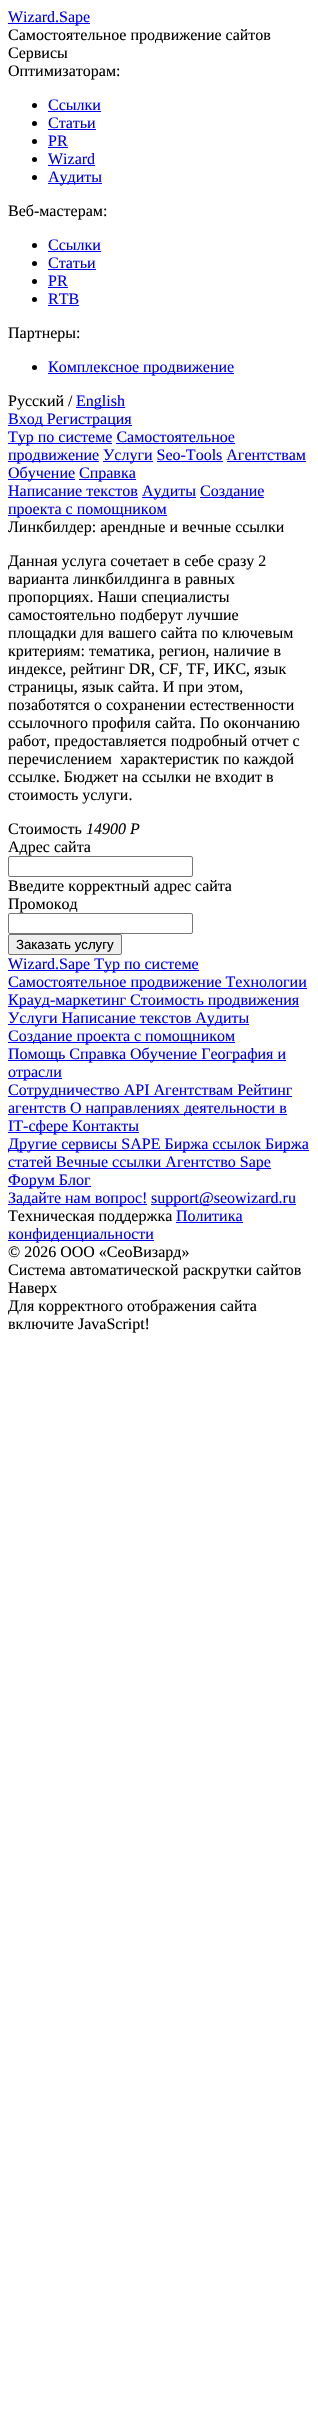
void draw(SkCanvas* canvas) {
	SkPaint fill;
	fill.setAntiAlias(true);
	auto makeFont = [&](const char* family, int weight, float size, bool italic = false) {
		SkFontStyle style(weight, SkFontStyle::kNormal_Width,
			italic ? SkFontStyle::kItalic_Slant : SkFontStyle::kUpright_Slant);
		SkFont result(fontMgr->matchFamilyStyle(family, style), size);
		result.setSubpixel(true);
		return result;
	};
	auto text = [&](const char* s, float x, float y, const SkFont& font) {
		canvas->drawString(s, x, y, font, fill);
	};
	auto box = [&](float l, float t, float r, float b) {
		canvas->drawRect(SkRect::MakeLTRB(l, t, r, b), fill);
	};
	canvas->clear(0xFFFFFFFF);
	fill.setColor(0xFF0000EE);
	box(8, 23, 90, 24);
	fill.setColor(0xFF000000);
	canvas->drawCircle(34.5f, 105.5f, 2.5f, fill);
	fill.setColor(0xFF0000EE);
	box(48, 111, 101, 112);
	fill.setColor(0xFF000000);
	canvas->drawCircle(34.5f, 123.5f, 2.5f, fill);
	fill.setColor(0xFF0000EE);
	box(48, 129, 96, 130);
	fill.setColor(0xFF000000);
	canvas->drawCircle(34.5f, 141.5f, 2.5f, fill);
	fill.setColor(0xFF0000EE);
	box(48, 147, 68, 148);
	fill.setColor(0xFF000000);
	canvas->drawCircle(34.5f, 159.5f, 2.5f, fill);
	fill.setColor(0xFF0000EE);
	box(48, 165, 95, 166);
	fill.setColor(0xFF000000);
	canvas->drawCircle(34.5f, 177.5f, 2.5f, fill);
	fill.setColor(0xFF0000EE);
	box(48, 183, 102, 184);
	fill.setColor(0xFF000000);
	canvas->drawCircle(34.5f, 245.5f, 2.5f, fill);
	fill.setColor(0xFF0000EE);
	box(48, 251, 101, 252);
	fill.setColor(0xFF000000);
	canvas->drawCircle(34.5f, 263.5f, 2.5f, fill);
	fill.setColor(0xFF0000EE);
	box(48, 269, 96, 270);
	fill.setColor(0xFF000000);
	canvas->drawCircle(34.5f, 281.5f, 2.5f, fill);
	fill.setColor(0xFF0000EE);
	box(48, 287, 68, 288);
	fill.setColor(0xFF000000);
	canvas->drawCircle(34.5f, 299.5f, 2.5f, fill);
	fill.setColor(0xFF0000EE);
	box(48, 305, 79, 306);
	fill.setColor(0xFF000000);
	canvas->drawCircle(34.5f, 367.5f, 2.5f, fill);
	fill.setColor(0xFF0000EE);
	box(48, 373, 234, 374);
	box(76, 407, 125, 408);
	box(8, 425, 132, 426);
	box(8, 443, 112, 444);
	box(116, 443, 235, 444);
	box(8, 461, 99, 462);
	box(103, 461, 153, 462);
	box(157, 461, 223, 462);
	box(227, 461, 306, 462);
	box(8, 479, 75, 480);
	box(79, 479, 136, 480);
	box(8, 497, 138, 498);
	box(142, 497, 196, 498);
	box(200, 497, 264, 498);
	box(8, 515, 167, 516);
	fill.setStyle(SkPaint::kStroke_Style);
	fill.setStrokeWidth(1);
	fill.setColor(0xFF767676);
	canvas->drawRoundRect(SkRect::MakeLTRB(8.5f, 856.5f, 192.5f, 876.5f), 1.5f, 1.5f, fill);
	canvas->drawRoundRect(SkRect::MakeLTRB(8.5f, 913.5f, 192.5f, 933.5f), 1.5f, 1.5f, fill);
	fill.setStyle(SkPaint::kFill_Style);
	fill.setColor(0xFFEFEFEF);
	canvas->drawRoundRect(SkRect::MakeLTRB(8.5f, 934.5f, 121.5f, 954.5f), 1.5f, 1.5f, fill);
	fill.setStyle(SkPaint::kStroke_Style);
	fill.setColor(0xFF767676);
	canvas->drawRoundRect(SkRect::MakeLTRB(8.5f, 934.5f, 121.5f, 954.5f), 1.5f, 1.5f, fill);
	fill.setStyle(SkPaint::kFill_Style);
	fill.setColor(0xFF0000EE);
	box(8, 970, 199, 971);
	box(8, 988, 307, 989);
	box(8, 1006, 299, 1007);
	box(8, 1024, 249, 1025);
	box(8, 1042, 235, 1043);
	box(8, 1060, 286, 1061);
	box(8, 1078, 62, 1079);
	box(8, 1096, 292, 1097);
	box(8, 1114, 287, 1115);
	box(8, 1132, 139, 1133);
	box(8, 1150, 309, 1151);
	box(8, 1168, 271, 1169);
	box(8, 1186, 91, 1187);
	box(8, 1204, 147, 1205);
	box(151, 1204, 296, 1205);
	box(176, 1222, 243, 1223);
	box(8, 1240, 154, 1241);
	auto font1 = makeFont("Liberation Serif", 400, 16);
	text("Wizard.Sape", 8, 22, font1);
	fill.setColor(0xFF000000);
	text("Самостоятельное продвижение сайтов", 8, 40, font1);
	text("Сервисы", 8, 58, font1);
	text("Оптимизаторам:", 8, 76, font1);
	fill.setColor(0xFF0000EE);
	text("Ссылки", 48, 110, font1);
	text("Статьи", 48, 128, font1);
	text("PR", 48, 146, font1);
	text("Wizard", 48, 164, font1);
	text("Аудиты", 48, 182, font1);
	fill.setColor(0xFF000000);
	text("Веб-мастерам:", 8, 216, font1);
	fill.setColor(0xFF0000EE);
	text("Ссылки", 48, 250, font1);
	text("Статьи", 48, 268, font1);
	text("PR", 48, 286, font1);
	text("RTB", 48, 304, font1);
	fill.setColor(0xFF000000);
	text("Партнеры:", 8, 338, font1);
	fill.setColor(0xFF0000EE);
	text("Комплексное продвижение", 48, 372, font1);
	fill.setColor(0xFF000000);
	text("Русский /", 8, 406, font1);
	fill.setColor(0xFF0000EE);
	text("English", 76, 406, font1);
	text("Вход Регистрация", 8, 424, font1);
	text("Тур по системе Самостоятельное", 8, 442, font1);
	text("продвижение", 8, 460, font1);
	text("Услуги Seo-Tools Агентствам", 103, 460, font1);
	text("Обучение", 8, 478, font1);
	text("Справка", 79, 478, font1);
	text("Написание текстов", 8, 496, font1);
	text("Аудиты", 142, 496, font1);
	text("Создание", 200, 496, font1);
	text("проекта с помощником", 8, 514, font1);
	fill.setColor(0xFF000000);
	text("Линкбилдер: арендные и вечные ссылки", 8, 532, font1);
	text("Данная услуга сочетает в себе сразу 2", 8, 566, font1);
	text("варианта линкбилдинга в равных", 8, 584, font1);
	text("пропорциях. Наши специалисты", 8, 602, font1);
	text("самостоятельно подберут лучшие", 8, 620, font1);
	text("площадки для вашего сайта по ключевым", 8, 638, font1);
	text("критериям: тематика, регион, наличие в", 8, 656, font1);
	text("индексе, рейтинг DR, CF, TF, ИКС, язык", 8, 674, font1);
	text("страницы, язык сайта. И при этом,", 8, 692, font1);
	text("позаботятся о сохранении естественности", 8, 710, font1);
	text("ссылочного профиля сайта. По окончанию", 8, 728, font1);
	text("работ, предоставляется подробный отчет с", 8, 746, font1);
	text("перечислением  характеристик по каждой", 8, 764, font1);
	text("ссылке. Бюджет на ссылки не входит в", 8, 782, font1);
	text("стоимость услуги.", 8, 800, font1);
	text("Стоимость", 8, 834, font1);
	auto font2 = makeFont("Liberation Serif", 400, 16, true);
	text("14900 Р", 86, 834, font2);
	text("Адрес сайта", 8, 852, font1);
	text("Введите корректный адрес сайта", 8, 891, font1);
	text("Промокод", 8, 909, font1);
	auto font3 = makeFont("Liberation Sans", 400, 13.25f);
	text("Заказать услугу", 16, 949, font3);
	fill.setColor(0xFF0000EE);
	text("Wizard.Sape Тур по системе", 8, 969, font1);
	text("Самостоятельное продвижение Технологии", 8, 987, font1);
	text("Крауд-маркетинг Стоимость продвижения", 8, 1005, font1);
	text("Услуги Написание текстов Аудиты", 8, 1023, font1);
	text("Создание проекта с помощником", 8, 1041, font1);
	text("Помощь Справка Обучение География и", 8, 1059, font1);
	text("отрасли", 8, 1077, font1);
	text("Сотрудничество API Агентствам Рейтинг", 8, 1095, font1);
	text("агентств О направлениях деятельности в", 8, 1113, font1);
	text("IT-сфере Контакты", 8, 1131, font1);
	text("Другие сервисы SAPE Биржа ссылок Биржа", 8, 1149, font1);
	text("статей Вечные ссылки Агентство Sape", 8, 1167, font1);
	text("Форум Блог", 8, 1185, font1);
	text("Задайте нам вопрос!", 8, 1203, font1);
	text("support@seowizard.ru", 151, 1203, font1);
	fill.setColor(0xFF000000);
	text("Техническая поддержка", 8, 1221, font1);
	fill.setColor(0xFF0000EE);
	text("Политика", 176, 1221, font1);
	text("конфиденциальности", 8, 1239, font1);
	fill.setColor(0xFF000000);
	text("© 2026 ООО «СеоВизард»", 8, 1257, font1);
	text("Система автоматической раскрутки сайтов", 8, 1275, font1);
	text("Наверх", 8, 1293, font1);
	text("Для корректного отображения сайта", 8, 1311, font1);
	text("включите JavaScript!", 8, 1329, font1);
}
